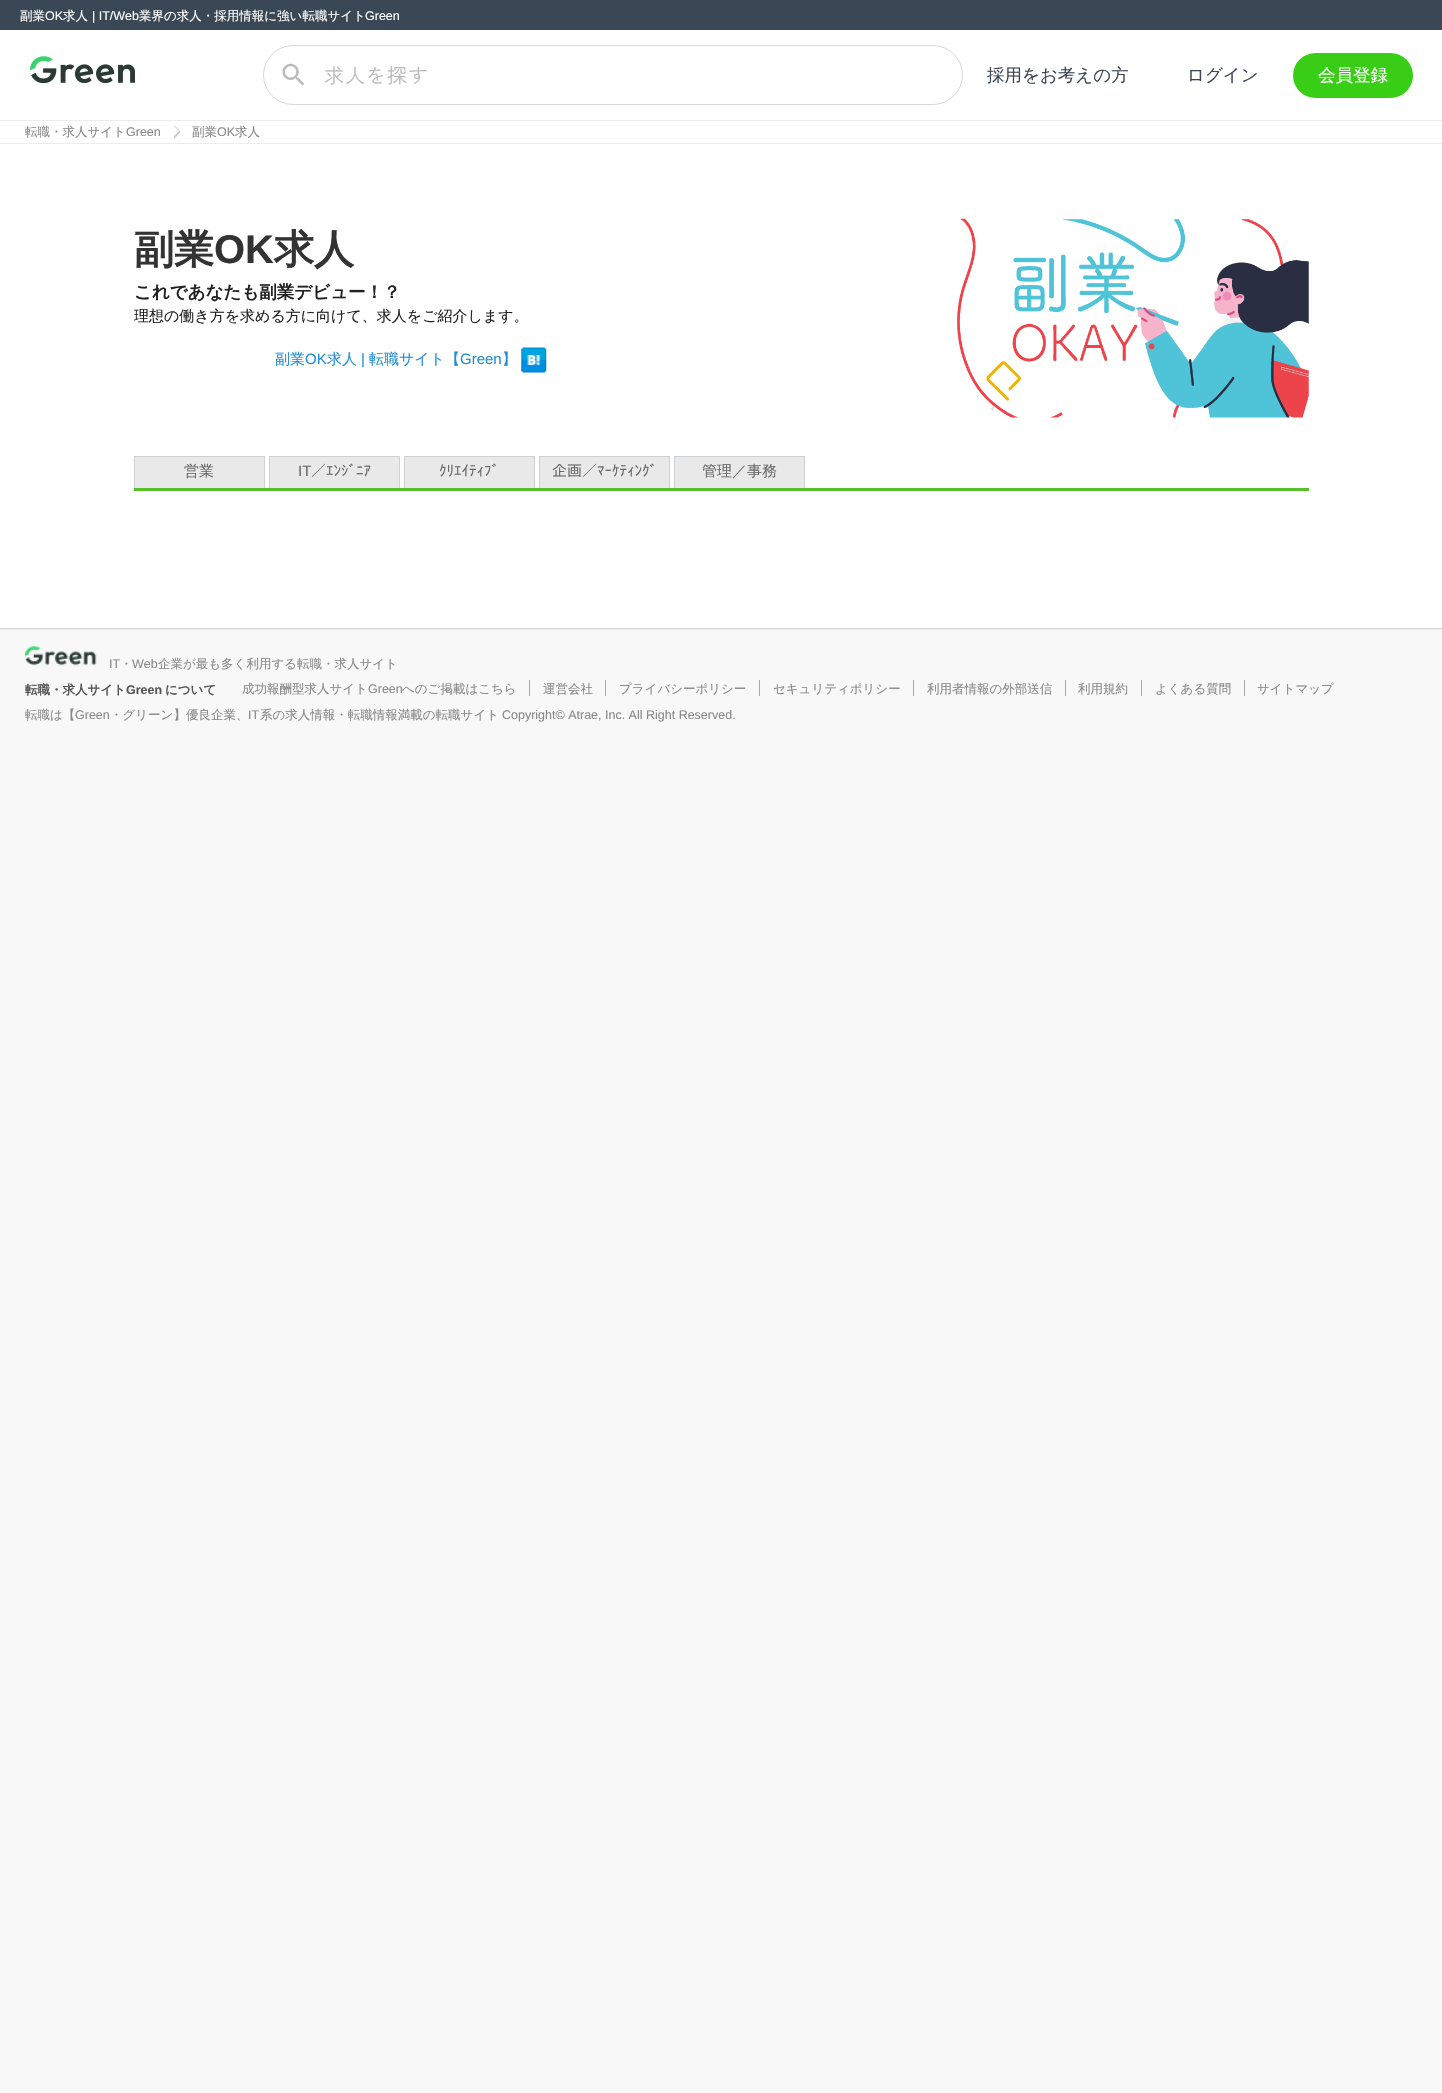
void draw(SkCanvas* canvas) {
	SkPaint fill;
	fill.setAntiAlias(true);
	auto makeFont = [&](const char* family, int weight, float size, bool italic = false) {
		SkFontStyle style(weight, SkFontStyle::kNormal_Width,
			italic ? SkFontStyle::kItalic_Slant : SkFontStyle::kUpright_Slant);
		SkFont result(fontMgr->matchFamilyStyle(family, style), size);
		result.setSubpixel(true);
		return result;
	};
	auto text = [&](const char* s, float x, float y, const SkFont& font) {
		canvas->drawString(s, x, y, font, fill);
	};
	auto spacedText = [&](const char* s, float x, float y, const SkFont& font, const SkPaint& ink, float letter, float word) {
		std::vector<SkGlyphID> glyphs(font.countText(s, strlen(s), SkTextEncoding::kUTF8));
		std::vector<float> xs(glyphs.size());
		font.textToGlyphs(s, strlen(s), SkTextEncoding::kUTF8, glyphs);
		font.getXPos(glyphs, xs, x);
		float extra = 0;
		for (size_t i = 0; i < glyphs.size(); i++) {
			xs[i] += extra;
			extra += letter + word * (glyphs[i] == font.unicharToGlyph(' '));
		}
		canvas->drawTextBlob(SkTextBlob::MakeFromPosHGlyphs(glyphs, xs, y, font), 0, 0, ink);
	};
	auto box = [&](float l, float t, float r, float b) {
		canvas->drawRect(SkRect::MakeLTRB(l, t, r, b), fill);
	};
	auto roundBox = [&](float l, float t, float r, float b, float radius) {
		canvas->drawRoundRect(SkRect::MakeLTRB(l, t, r, b), radius, radius, fill);
	};
	auto picture = [&](const char* path, float l, float t, float r, float b) {
		auto image = SkImages::DeferredFromEncodedData(SkData::MakeFromFileName(path));
		canvas->drawImageRect(image, SkRect::MakeLTRB(l, t, r, b), SkSamplingOptions());
	};
	canvas->clear(0xFFF8F8F8);
	fill.setColor(0xFFFFFFFF);
	box(0, 30, 1442, 120);
	fill.setColor(0xFFECECEC);
	box(0, 120, 1442, 121);
	fill.setColor(0xFF3A4855);
	box(0, 0, 1442, 30);
	picture("image0.png", 30, 56, 135, 83);
	fill.setStyle(SkPaint::kStroke_Style);
	fill.setStrokeWidth(1);
	fill.setColor(0xFFD8D8D8);
	canvas->drawRoundRect(SkRect::MakeLTRB(263.5f, 45.5f, 962.5f, 104.5f), 29.5f, 29.5f, fill);
	picture("image1.png", 282, 63, 305, 86);
	fill.setStyle(SkPaint::kFill_Style);
	fill.setColor(0xFF39CE16);
	roundBox(1293, 53, 1413, 98, 22.5f);
	fill.setColor(0xFFFFFFFF);
	box(0, 121, 1442, 628);
	fill.setColor(0xFFECECEC);
	box(0, 143, 1442, 144);
	fill.setColor(0xFFCCCCCC);
	canvas->drawPath(SkPathBuilder().moveTo(174, 139).lineTo(174, 125).lineTo(180, 131).lineTo(180, 132.5f).close().detach(), fill);
	fill.setColor(0xFFFFFFFF);
	canvas->drawPath(SkPathBuilder().moveTo(174, 136).lineTo(174, 126).lineTo(179, 131).close().detach(), fill);
	picture("image2.png", 521, 347, 547, 373);
	picture("image3.png", 957, 218, 1309, 418);
	fill.setColor(0xFF57C129);
	box(134, 488, 1309, 491);
	fill.setColor(0xFFE9E9E9);
	box(135, 457, 264, 488);
	fill.setColor(0xFFCDD1D3);
	box(134, 456, 265, 457);
	box(264, 456, 265, 488);
	box(134, 456, 135, 488);
	fill.setColor(0xFFE9E9E9);
	box(270, 457, 399, 488);
	fill.setColor(0xFFCDD1D3);
	box(269, 456, 400, 457);
	box(399, 456, 400, 488);
	box(269, 456, 270, 488);
	fill.setColor(0xFFE9E9E9);
	box(405, 457, 534, 488);
	fill.setColor(0xFFCDD1D3);
	box(404, 456, 535, 457);
	box(534, 456, 535, 488);
	box(404, 456, 405, 488);
	fill.setColor(0xFFE9E9E9);
	box(540, 457, 669, 488);
	fill.setColor(0xFFCDD1D3);
	box(539, 456, 670, 457);
	box(669, 456, 670, 488);
	box(539, 456, 540, 488);
	fill.setColor(0xFFE9E9E9);
	box(675, 457, 804, 488);
	fill.setColor(0xFFCDD1D3);
	box(674, 456, 805, 457);
	box(804, 456, 805, 488);
	box(674, 456, 675, 488);
	fill.setColor(0xFFD5D5D5);
	box(0, 628, 1442, 629);
	fill.setColor(0xFFEFEFEF);
	box(0, 629, 1442, 630);
	picture("image4.png", 25, 646, 97, 666);
	fill.setColor(0xFFAAAAAA);
	box(529, 680, 530, 696);
	box(605, 680, 606, 696);
	box(759, 680, 760, 696);
	box(913, 680, 914, 696);
	box(1065, 680, 1066, 696);
	box(1141, 680, 1142, 696);
	box(1244, 680, 1245, 696);
	auto font1 = makeFont("WenQuanYi Zen Hei", 500, 12.5f);
	fill.setColor(0xFFFFFFFF);
	text("副業", 20, 20, font1);
	auto font2 = makeFont("Liberation Sans", 400, 12.5f);
	text("OK", 45, 20, font2);
	text("求人", 63, 20, font1);
	text("| IT/Web", 92, 20, font2);
	text("業界の求人・採用情報に強い転職サイト", 139, 20, font1);
	text("Green", 365, 20, font2);
	auto font3 = makeFont("Zen Kaku Gothic New", 400, 20);
	fill.setColor(0xFFBBBBBB);
	spacedText("求人を探す", 324, 83, font3, fill, 1, 0);
	auto font4 = makeFont("WenQuanYi Zen Hei", 500, 17.5f);
	fill.setColor(0xFF3C4855);
	text("採用をお考えの方", 987, 81, font4);
	text("ログイン", 1187, 81, font4);
	fill.setColor(0xFFFFFFFF);
	text("会員登録", 1318, 81, font4);
	fill.setColor(0xFF888888);
	text("転職・求人サイト", 25, 136, font1);
	text("Green", 126, 136, font2);
	text("副業", 192, 136, font1);
	text("OK", 217, 136, font2);
	text("求人", 235, 136, font1);
	auto font5 = makeFont("WenQuanYi Zen Hei", 700, 40);
	fill.setColor(0xFF333333);
	text("副業", 134, 263, font5);
	auto font6 = makeFont("Liberation Sans", 700, 40);
	text("OK", 214, 263, font6);
	text("求人", 274, 263, font5);
	auto font7 = makeFont("WenQuanYi Zen Hei", 700, 17.5f);
	fill.setColor(0xFF212121);
	text("これであなたも副業デビュー！？", 134, 298, font7);
	auto font8 = makeFont("WenQuanYi Zen Hei", 500, 15);
	text("理想の働き方を求める方に向けて、求人をご紹介します。", 134, 321, font8);
	fill.setColor(0xFF1F8ED5);
	text("副業", 275, 364, font8);
	auto font9 = makeFont("Liberation Sans", 400, 15);
	text("OK", 305, 364, font9);
	text("求人", 327, 364, font8);
	text("|", 361, 364, font9);
	text("転職サイト【", 369, 364, font8);
	text("Green", 460, 364, font9);
	text("】", 502, 364, font8);
	fill.setColor(0xFF696969);
	text("営業", 184, 476, font8);
	text("IT", 298, 476, font9);
	auto font10 = makeFont("IPAGothic", 400, 15);
	text("／ｴﾝｼﾞﾆｱ", 311, 476, font10);
	text("ｸﾘｴｲﾃｨﾌﾞ", 439, 476, font10);
	text("企画／ﾏｰｹﾃｨﾝｸﾞ", 552, 476, font10);
	text("管理／事務", 702, 476, font8);
	fill.setColor(0xFF888888);
	text("IT", 109, 668, font2);
	text("・", 120, 668, font1);
	text("Web", 132, 668, font2);
	text("企業が最も多く利用する転職・求人サイト", 158, 668, font1);
	auto font11 = makeFont("WenQuanYi Zen Hei", 700, 12.5f);
	fill.setColor(0xFF555555);
	text("転職・求人サイト", 25, 694, font11);
	auto font12 = makeFont("Liberation Sans", 700, 12.5f);
	text("Green", 126, 694, font12);
	text("について", 165, 694, font11);
	fill.setColor(0xFF888888);
	text("成功報酬型求人サイト", 242, 693, font1);
	text("Green", 368, 693, font2);
	text("へのご掲載はこちら", 402, 693, font1);
	text("運営会社", 543, 693, font1);
	text("プライバシーポリシー", 619, 693, font1);
	text("セキュリティポリシー", 773, 693, font1);
	text("利用者情報の外部送信", 927, 693, font1);
	text("利用規約", 1078, 693, font1);
	text("よくある質問", 1155, 693, font1);
	text("サイトマップ", 1257, 693, font1);
	text("転職は【", 25, 719, font1);
	text("Green", 75, 719, font2);
	text("・グリーン】優良企業、", 110, 719, font1);
	text("IT", 248, 719, font2);
	text("系の求人情報・転職情報満載の転職サイト", 260, 719, font1);
	text("Copyright© Atrae, Inc. All Right Reserved.", 502, 719, font2);
}
